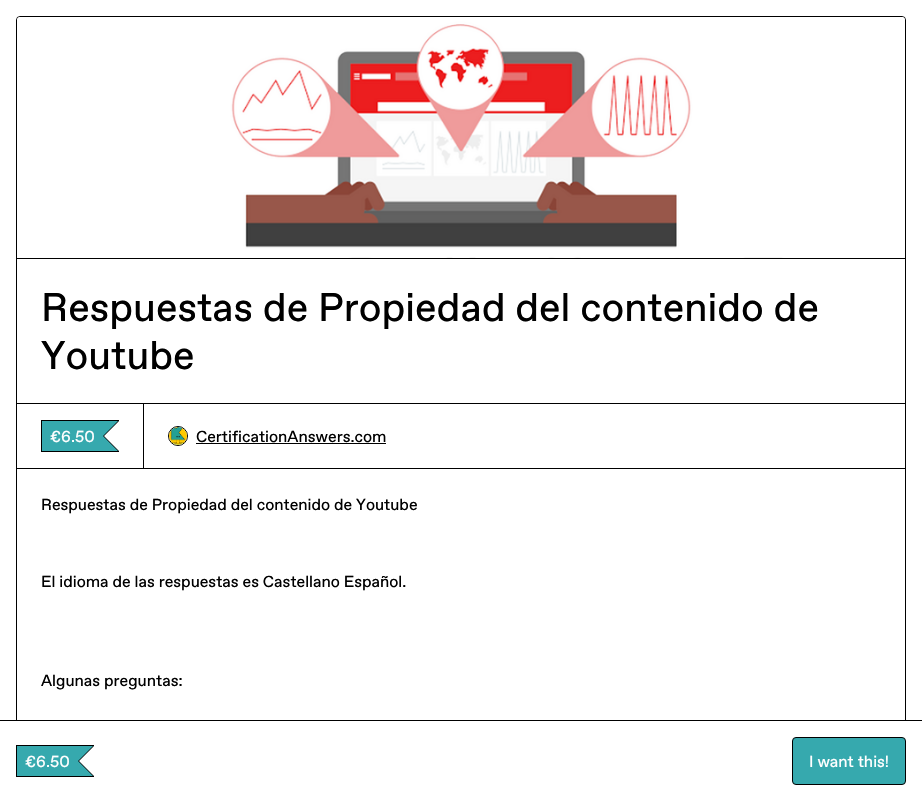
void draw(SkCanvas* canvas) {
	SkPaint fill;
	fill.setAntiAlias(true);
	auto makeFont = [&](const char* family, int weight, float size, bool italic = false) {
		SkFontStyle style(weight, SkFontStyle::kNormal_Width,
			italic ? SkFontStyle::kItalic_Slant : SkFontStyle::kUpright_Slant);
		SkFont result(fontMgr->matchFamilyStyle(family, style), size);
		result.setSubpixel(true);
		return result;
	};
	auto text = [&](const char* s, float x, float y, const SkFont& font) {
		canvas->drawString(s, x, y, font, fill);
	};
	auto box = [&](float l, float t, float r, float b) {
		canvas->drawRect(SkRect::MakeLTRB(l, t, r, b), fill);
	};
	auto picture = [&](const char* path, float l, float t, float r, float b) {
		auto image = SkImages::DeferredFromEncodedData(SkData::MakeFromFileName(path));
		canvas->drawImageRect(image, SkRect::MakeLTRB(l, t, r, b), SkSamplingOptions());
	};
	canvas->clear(0xFFFFFFFF);
	fill.setStyle(SkPaint::kStroke_Style);
	fill.setStrokeWidth(1);
	fill.setColor(0xFF000000);
	canvas->drawRoundRect(SkRect::MakeLTRB(16.5f, 16.5f, 905.5f, 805.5f), 3.5f, 3.5f, fill);
	picture("image0.png", 17, 17, 905, 258);
	fill.setStyle(SkPaint::kFill_Style);
	box(17, 258, 905, 259);
	picture("image1.png", 17, 17, 905, 257);
	box(144, 403, 905, 404);
	fill.setStyle(SkPaint::kStroke_Style);
	canvas->drawRect(SkRect::MakeLTRB(16.5f, 403.5f, 143.5f, 468.5f), fill);
	fill.setStyle(SkPaint::kFill_Style);
	box(41, 420, 119, 421);
	box(41, 451, 119, 452);
	box(41, 420, 42, 452);
	fill.setColor(0xFF36A9AE);
	box(42, 421, 103, 451);
	fill.setColor(0xFF000000);
	canvas->drawPath(SkPathBuilder().moveTo(103, 421).lineTo(119, 421).lineTo(104, 436).close().moveTo(119, 451).lineTo(103, 451).lineTo(104, 436).close().detach(), fill);
	box(103, 435, 104, 437);
	fill.setColor(0xFF36A9AE);
	canvas->drawPath(SkPathBuilder().moveTo(102, 421).lineTo(118, 421).lineTo(103, 436).close().moveTo(118, 451).lineTo(102, 451).lineTo(103, 436).close().detach(), fill);
	fill.setStyle(SkPaint::kStroke_Style);
	fill.setColor(0xFF000000);
	canvas->drawCircle(178, 436, 9.5f, fill);
	picture("image2.png", 169, 427, 187, 445);
	fill.setStyle(SkPaint::kFill_Style);
	box(196, 443, 386, 444);
	box(144, 468, 905, 469);
	box(0, 720, 922, 721);
	fill.setColor(0xFFFFFFFF);
	box(16, 721, 906, 801);
	fill.setColor(0xFF000000);
	box(16, 745, 94, 746);
	box(16, 776, 94, 777);
	box(16, 745, 17, 777);
	fill.setColor(0xFF36A9AE);
	box(17, 746, 78, 776);
	fill.setColor(0xFF000000);
	canvas->drawPath(SkPathBuilder().moveTo(78, 746).lineTo(94, 746).lineTo(79, 761).close().moveTo(94, 776).lineTo(78, 776).lineTo(79, 761).close().detach(), fill);
	box(78, 760, 79, 762);
	fill.setColor(0xFF36A9AE);
	canvas->drawPath(SkPathBuilder().moveTo(77, 746).lineTo(93, 746).lineTo(78, 761).close().moveTo(93, 776).lineTo(77, 776).lineTo(78, 761).close().detach(), fill);
	canvas->drawRoundRect(SkRect::MakeLTRB(792.5f, 737.5f, 905.5f, 784.5f), 3.5f, 3.5f, fill);
	fill.setStyle(SkPaint::kStroke_Style);
	fill.setColor(0xFF000000);
	canvas->drawRoundRect(SkRect::MakeLTRB(792.5f, 737.5f, 905.5f, 784.5f), 3.5f, 3.5f, fill);
	auto font1 = makeFont("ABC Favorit", 400, 40);
	fill.setStyle(SkPaint::kFill_Style);
	text("Respuestas de Propiedad del contenido de", 41, 321, font1);
	text("Youtube", 41, 369, font1);
	auto font2 = makeFont("ABC Favorit", 400, 16);
	fill.setColor(0xFFFFFFFF);
	text("€6.50", 50, 442, font2);
	fill.setColor(0xFF000000);
	text("CertificationAnswers.com", 196, 442, font2);
	text("Respuestas de Propiedad del contenido de Youtube", 41, 510, font2);
	text("El idioma de las respuestas es Castellano Español.", 41, 587, font2);
	text("Algunas preguntas:", 41, 686, font2);
	fill.setColor(0xFFFFFFFF);
	text("€6.50", 25, 767, font2);
	text("I want this!", 809, 767, font2);
}
